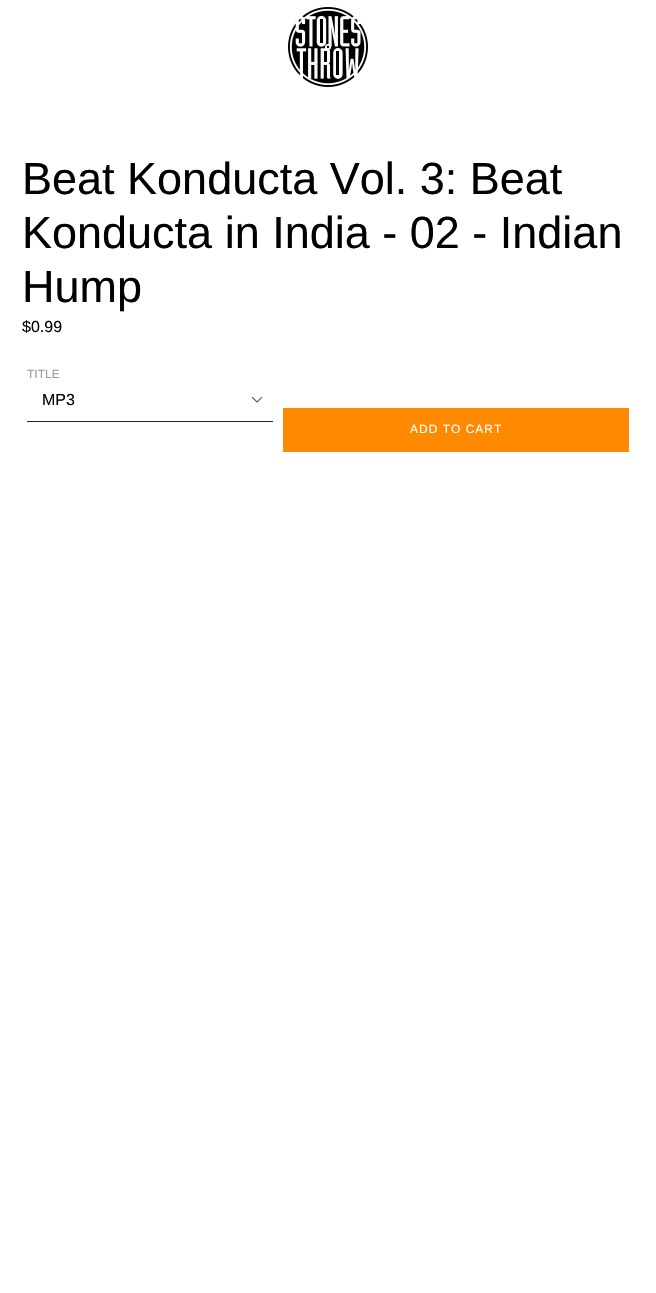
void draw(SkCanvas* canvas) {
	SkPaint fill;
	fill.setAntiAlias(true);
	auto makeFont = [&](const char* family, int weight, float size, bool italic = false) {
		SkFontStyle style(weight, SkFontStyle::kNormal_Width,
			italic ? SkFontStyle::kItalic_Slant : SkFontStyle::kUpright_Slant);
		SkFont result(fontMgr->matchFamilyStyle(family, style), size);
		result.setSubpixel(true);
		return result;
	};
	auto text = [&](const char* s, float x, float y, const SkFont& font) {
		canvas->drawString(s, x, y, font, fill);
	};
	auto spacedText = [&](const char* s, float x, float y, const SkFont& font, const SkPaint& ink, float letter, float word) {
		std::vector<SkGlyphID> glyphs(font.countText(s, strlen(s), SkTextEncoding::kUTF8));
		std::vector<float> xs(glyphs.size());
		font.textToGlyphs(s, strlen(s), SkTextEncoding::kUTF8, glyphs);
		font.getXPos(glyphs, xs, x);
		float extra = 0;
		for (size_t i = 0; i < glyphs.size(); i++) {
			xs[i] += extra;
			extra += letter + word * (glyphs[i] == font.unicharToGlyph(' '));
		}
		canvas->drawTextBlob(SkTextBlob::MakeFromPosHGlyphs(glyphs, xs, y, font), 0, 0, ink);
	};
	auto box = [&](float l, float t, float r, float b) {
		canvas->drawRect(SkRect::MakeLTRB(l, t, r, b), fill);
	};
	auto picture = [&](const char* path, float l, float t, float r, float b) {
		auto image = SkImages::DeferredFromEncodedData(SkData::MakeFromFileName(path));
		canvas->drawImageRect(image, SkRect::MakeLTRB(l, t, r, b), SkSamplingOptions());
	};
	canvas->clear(0xFFFFFFFF);
	picture("image0.png", 288, 7, 368, 87);
	picture("image1.png", 251, 396, 263, 403);
	fill.setColor(0xFF262626);
	box(27, 421, 273, 422);
	fill.setColor(0xFFFF8900);
	box(283, 408, 629, 452);
	auto font1 = makeFont("Liberation Sans", 400, 45);
	fill.setColor(0xFF000000);
	text("Beat Konducta Vol. 3: Beat", 22, 194, font1);
	text("Konducta in India - 02 - Indian", 22, 248, font1);
	text("Hump", 22, 302, font1);
	auto font2 = makeFont("Liberation Sans", 400, 16);
	text("$0.99", 22, 332, font2);
	auto font3 = makeFont("Liberation Sans", 400, 12);
	fill.setColor(0xFF9B9B9B);
	text("TITLE", 27, 378, font3);
	fill.setColor(0xFF000000);
	text("MP3", 42, 405, font2);
	fill.setColor(0xFFFFFFFF);
	spacedText("ADD TO CART", 410, 433, font3, fill, 1, 0);
}
